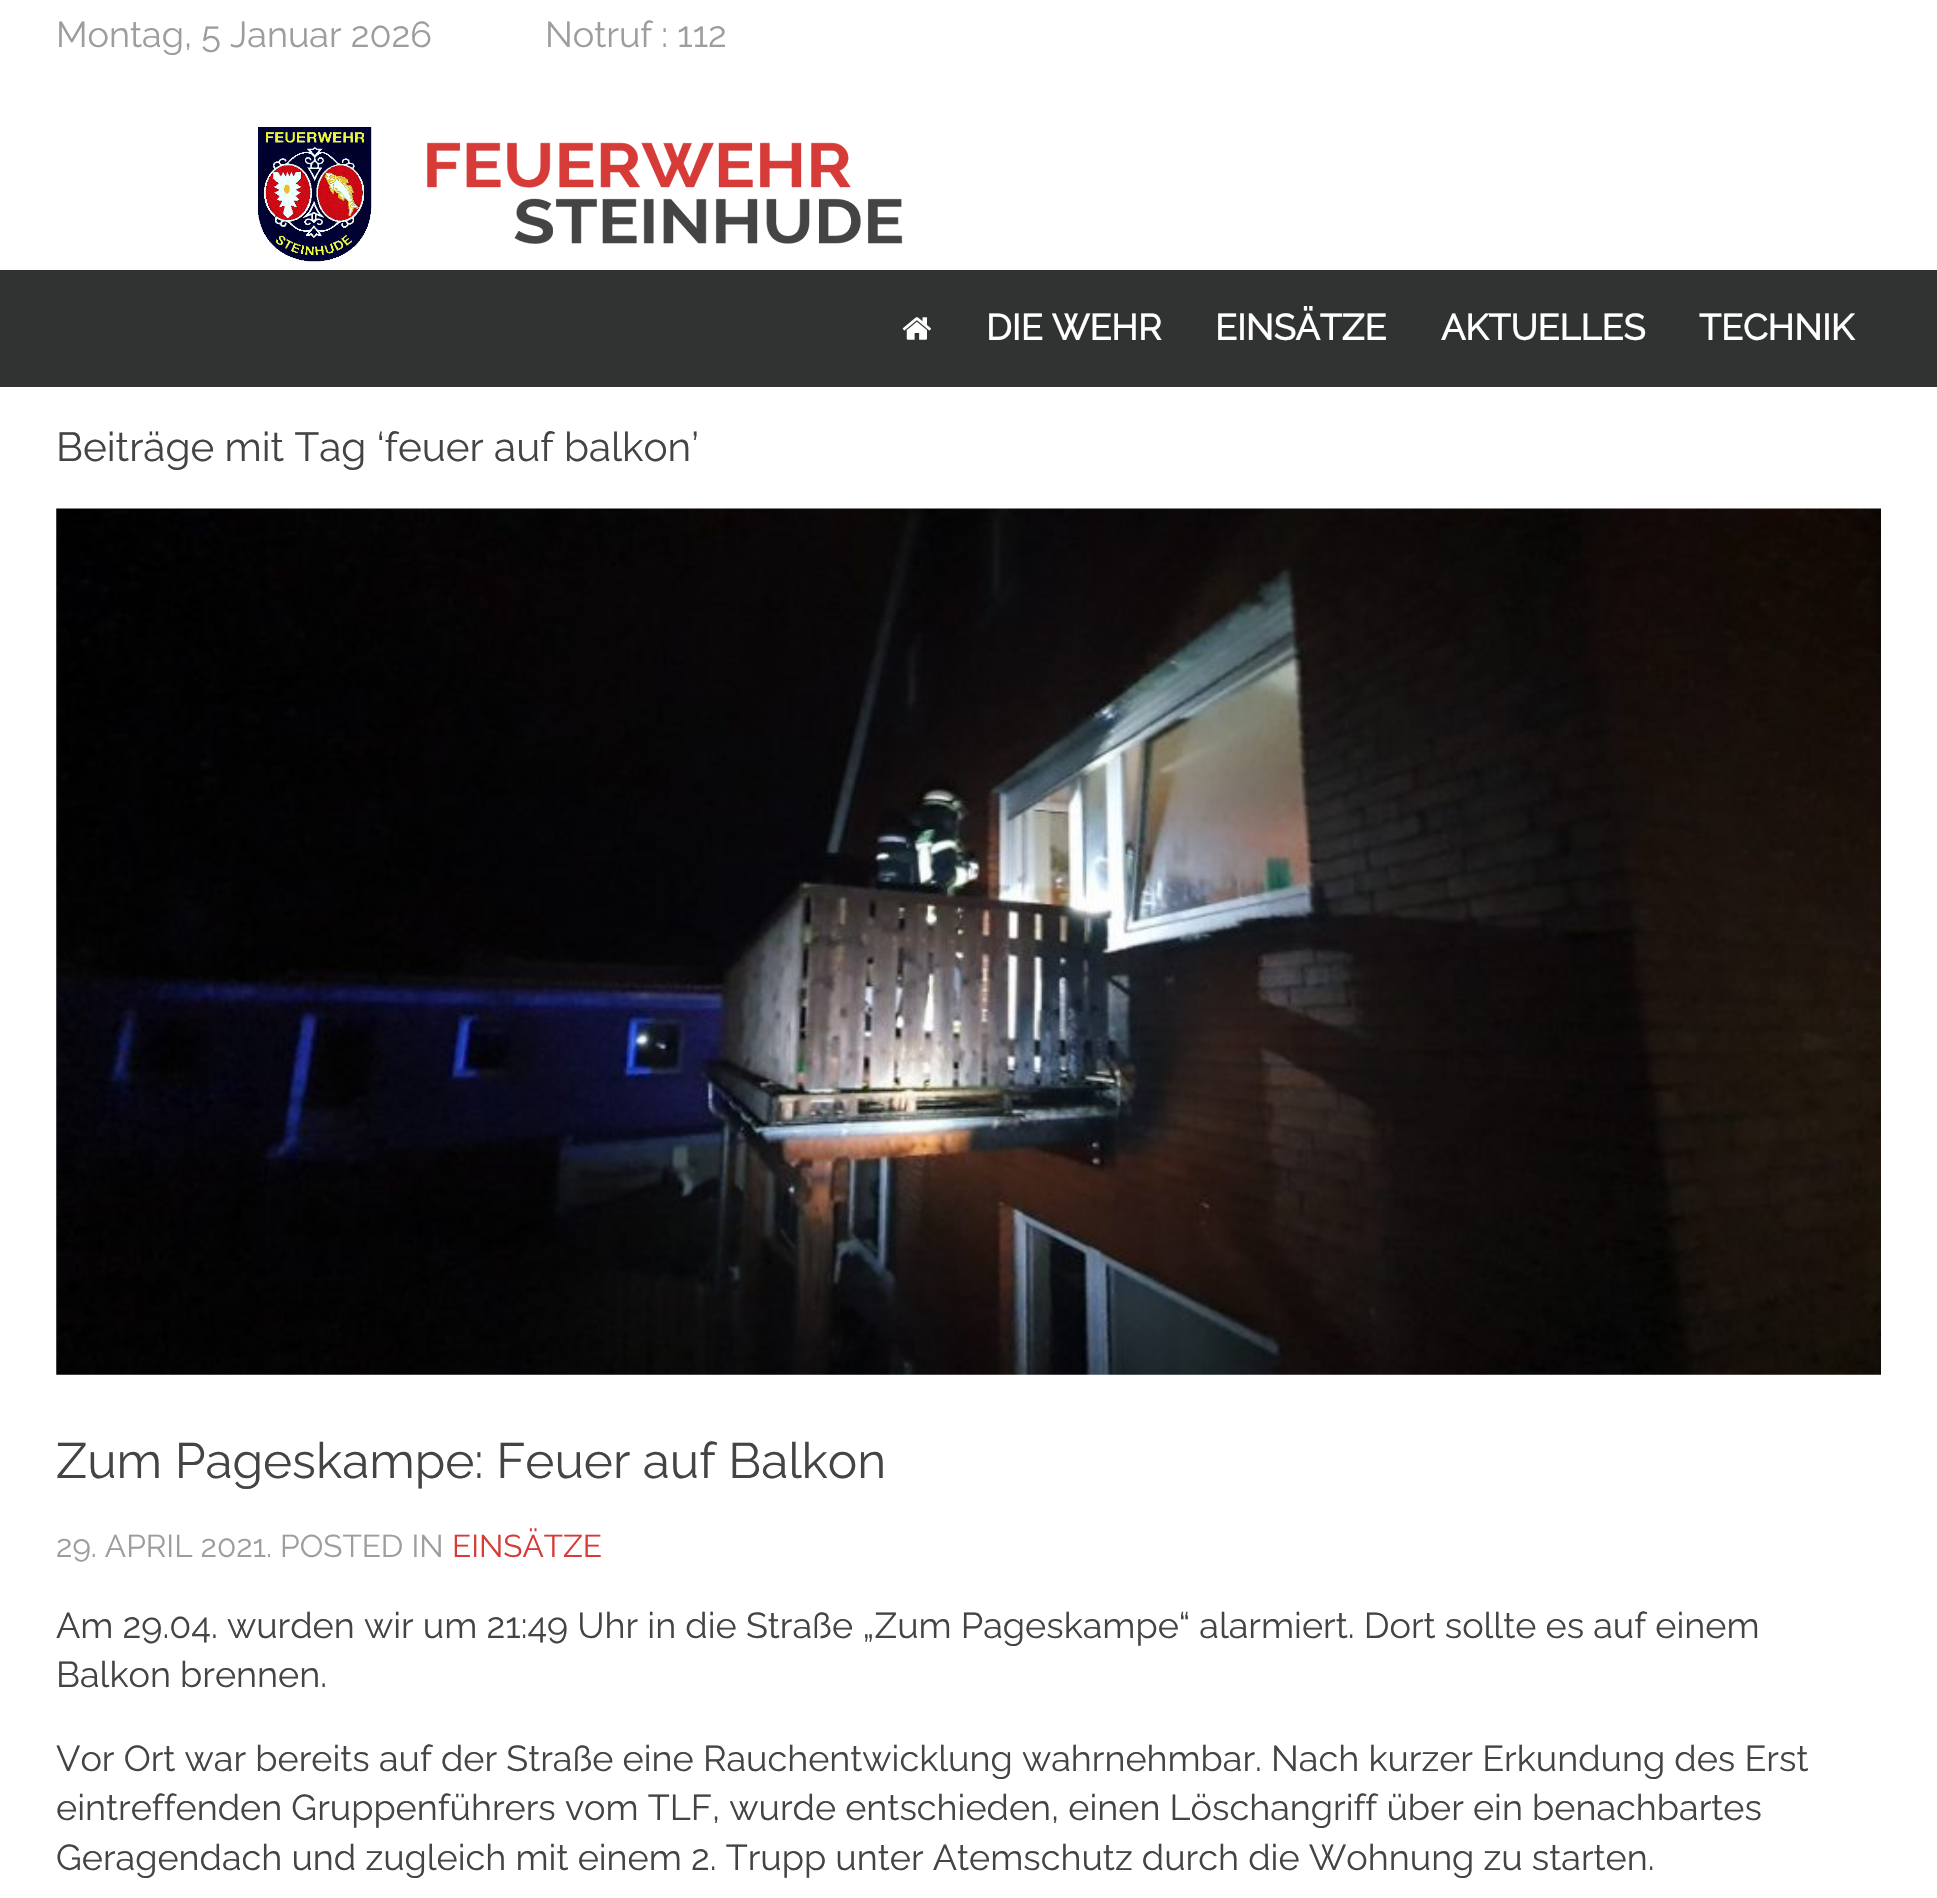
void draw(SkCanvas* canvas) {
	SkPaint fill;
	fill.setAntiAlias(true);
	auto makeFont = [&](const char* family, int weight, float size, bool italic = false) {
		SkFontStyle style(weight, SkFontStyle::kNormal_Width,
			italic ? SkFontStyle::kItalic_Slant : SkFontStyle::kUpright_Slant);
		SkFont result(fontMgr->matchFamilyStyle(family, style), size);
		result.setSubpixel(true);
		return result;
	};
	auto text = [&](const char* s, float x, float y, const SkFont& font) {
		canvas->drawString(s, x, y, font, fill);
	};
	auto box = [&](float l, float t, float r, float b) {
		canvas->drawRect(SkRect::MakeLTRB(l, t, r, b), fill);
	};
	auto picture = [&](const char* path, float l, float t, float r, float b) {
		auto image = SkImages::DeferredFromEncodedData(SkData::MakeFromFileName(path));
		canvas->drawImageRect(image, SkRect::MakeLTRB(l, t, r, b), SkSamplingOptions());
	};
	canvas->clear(0xFF313232);
	fill.setColor(0xFFFFFFFF);
	box(0, 0, 1937, 270);
	picture("image0.png", 258, 127, 903, 262);
	picture("image1.png", 902, 317, 931, 340);
	box(0, 387, 1937, 1898);
	picture("image2.png", 56, 508, 1881, 1375);
	auto font1 = makeFont("Raleway", 100, 36);
	fill.setColor(0xFF9D9D9D);
	text("Montag, 5 Januar 2026", 56, 47, font1);
	text("Notruf : 112", 545, 47, font1);
	auto font2 = makeFont("Raleway", 700, 36);
	fill.setColor(0xFFFFFFFF);
	text("DIE WEHR", 986, 340, font2);
	text("EINSÄTZE", 1215, 340, font2);
	text("AKTUELLES", 1441, 340, font2);
	text("TECHNIK", 1699, 340, font2);
	auto font3 = makeFont("Raleway", 100, 40.5f);
	fill.setColor(0xFF444444);
	text("Beiträge mit Tag ‘feuer auf balkon’", 56, 461, font3);
	auto font4 = makeFont("Raleway", 100, 49.5f);
	text("Zum Pageskampe: Feuer auf Balkon", 56, 1478, font4);
	auto font5 = makeFont("Raleway", 100, 31.5f);
	fill.setColor(0xFF9D9D9D);
	text("29. APRIL 2021. POSTED IN", 56, 1557, font5);
	fill.setColor(0xFFD63B37);
	text("EINSÄTZE", 452, 1557, font5);
	fill.setColor(0xFF444444);
	text("Am 29.04. wurden wir um 21:49 Uhr in die Straße „Zum Pageskampe“ alarmiert. Dort sollte es auf einem", 56, 1638, font1);
	text("Balkon brennen.", 56, 1687, font1);
	text("Vor Ort war bereits auf der Straße eine Rauchentwicklung wahrnehmbar. Nach kurzer Erkundung des Erst", 56, 1771, font1);
	text("eintreffenden Gruppenführers vom TLF, wurde entschieden, einen Löschangriff über ein benachbartes", 56, 1820, font1);
	text("Geragendach und zugleich mit einem 2. Trupp unter Atemschutz durch die Wohnung zu starten.", 56, 1870, font1);
}
